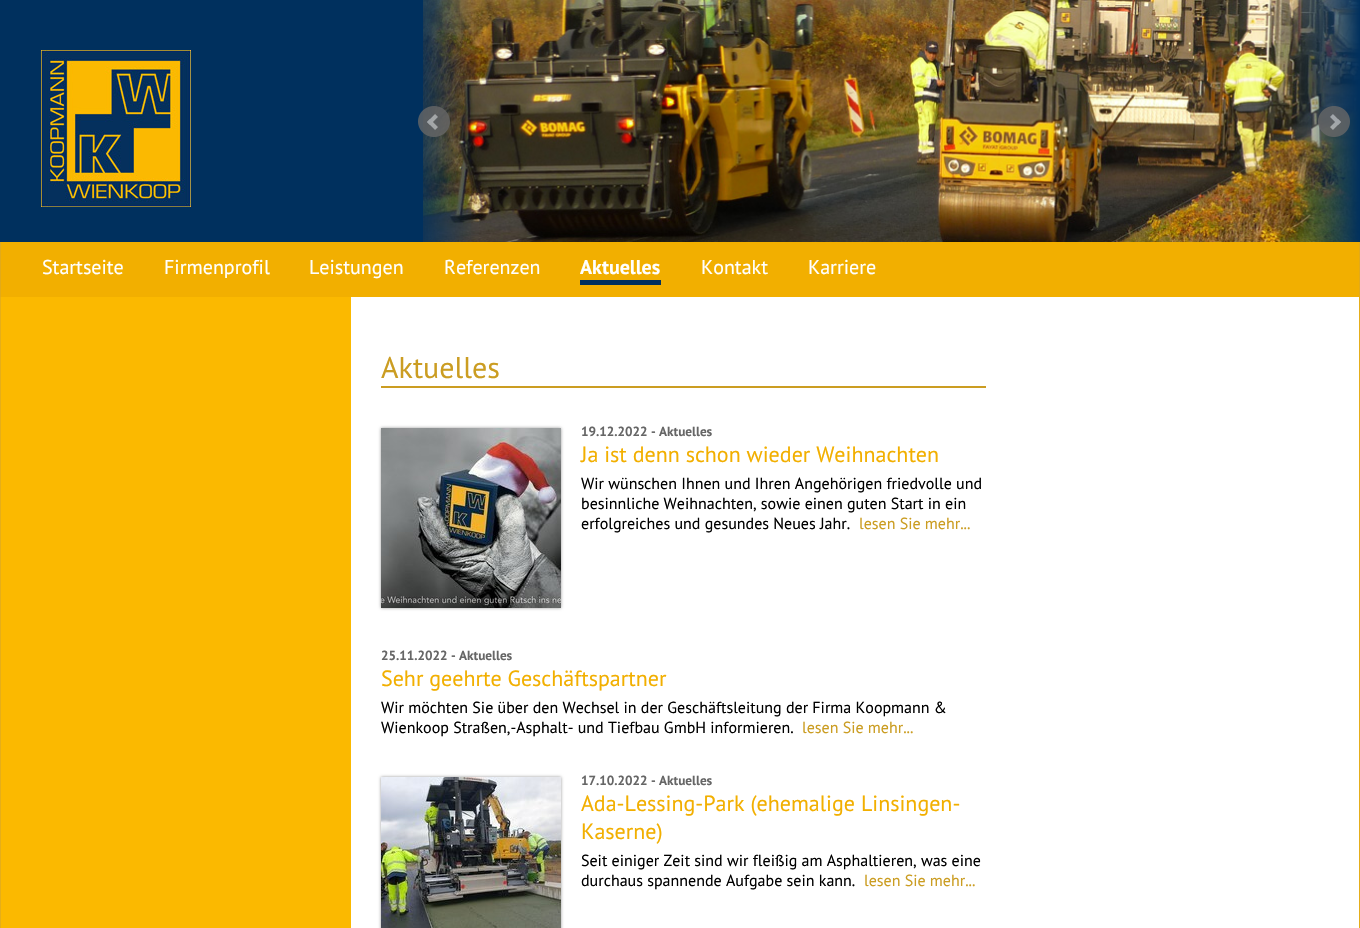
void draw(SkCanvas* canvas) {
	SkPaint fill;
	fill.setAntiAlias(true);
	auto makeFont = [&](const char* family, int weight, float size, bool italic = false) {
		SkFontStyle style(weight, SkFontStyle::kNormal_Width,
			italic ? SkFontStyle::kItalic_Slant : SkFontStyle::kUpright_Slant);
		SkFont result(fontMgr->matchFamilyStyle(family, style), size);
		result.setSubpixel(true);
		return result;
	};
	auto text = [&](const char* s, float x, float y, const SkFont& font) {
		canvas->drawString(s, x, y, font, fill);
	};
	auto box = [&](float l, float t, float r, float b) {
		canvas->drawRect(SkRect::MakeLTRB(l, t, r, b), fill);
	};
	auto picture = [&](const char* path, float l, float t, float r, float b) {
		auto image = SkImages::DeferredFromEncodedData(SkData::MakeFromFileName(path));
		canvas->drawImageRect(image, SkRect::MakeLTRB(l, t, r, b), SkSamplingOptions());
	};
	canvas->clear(0xFF00305E);
	picture("image0.png", 41, 50, 191, 207);
	picture("image1.png", 423, 0, 1360, 242);
	{
		const SkColor colors[] = {0xFF00305E, 0x0000305E};
		const float stops[] = {0, 1};
		const SkPoint ends[] = {{408, 121}, {476, 121}};
		fill.setShader(SkGradientShader::MakeLinear(ends, colors, stops, 2, SkTileMode::kClamp));
		fill.setAlpha(255);
	}
	box(423, 0, 475, 242);
	picture("image2.png", 418, 106, 450, 137);
	picture("image3.png", 1318, 106, 1350, 137);
	fill.setShader(nullptr);
	fill.setColor(0xFFF2AF00);
	box(1, 242, 1359, 297);
	fill.setColor(0xFFE2AA1A);
	box(1359, 242, 1360, 297);
	box(0, 242, 1, 297);
	fill.setColor(0xFF00305E);
	box(580, 280, 661, 285);
	fill.setColor(0xFFFBB900);
	box(1, 297, 351, 928);
	fill.setColor(0xFFE5AE1A);
	box(1359, 297, 1360, 928);
	box(0, 297, 1, 928);
	fill.setColor(0xFFFFFFFF);
	box(351, 297, 1359, 928);
	fill.setColor(0xFFCB9D22);
	box(381, 386, 986, 388);
	fill.setColor(0x66000000);
	fill.setMaskFilter(SkMaskFilter::MakeBlur(kNormal_SkBlurStyle, 1.5f));
	canvas->drawRect(SkRect::MakeLTRB(381, 428, 561, 608), fill);
	fill.setMaskFilter(nullptr);
	picture("image4.png", 381, 428, 561, 608);
	fill.setMaskFilter(SkMaskFilter::MakeBlur(kNormal_SkBlurStyle, 1.5f));
	canvas->drawRect(SkRect::MakeLTRB(381, 777, 561, 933), fill);
	fill.setMaskFilter(nullptr);
	picture("image5.png", 381, 777, 561, 928);
	auto font1 = makeFont("PT Sans", 400, 20);
	fill.setColor(0xFFFFFFFF);
	text("Startseite", 42, 274, font1);
	text("Firmenprofil", 164, 274, font1);
	text("Leistungen", 309, 274, font1);
	text("Referenzen", 444, 274, font1);
	auto font2 = makeFont("PT Sans", 700, 20);
	text("Aktuelles", 580, 274, font2);
	text("Kontakt", 701, 274, font1);
	text("Karriere", 808, 274, font1);
	auto font3 = makeFont("PT Sans", 400, 30);
	fill.setColor(0xFFCB9D22);
	text("Aktuelles", 381, 378, font3);
	auto font4 = makeFont("PT Sans", 700, 13.25f);
	fill.setColor(0xFF666666);
	text("19.12.2022 - Aktuelles", 581, 436, font4);
	auto font5 = makeFont("PT Sans", 400, 22);
	fill.setColor(0xFFF2AF00);
	text("Ja ist denn schon wieder Weihnachten", 581, 462, font5);
	auto font6 = makeFont("PT Sans", 400, 16);
	fill.setColor(0xFF000000);
	text("Wir wünschen Ihnen und Ihren Angehörigen friedvolle und", 581, 489, font6);
	text("besinnliche Weihnachten, sowie einen guten Start in ein", 581, 509, font6);
	text("erfolgreiches und gesundes Neues Jahr.", 581, 529, font6);
	fill.setColor(0xFFCB9D22);
	text("lesen Sie mehr...", 859, 529, font6);
	fill.setColor(0xFF666666);
	text("25.11.2022 - Aktuelles", 381, 660, font4);
	fill.setColor(0xFFF2AF00);
	text("Sehr geehrte Geschäftspartner", 381, 686, font5);
	fill.setColor(0xFF000000);
	text("Wir möchten Sie über den Wechsel in der Geschäftsleitung der Firma Koopmann &", 381, 713, font6);
	text("Wienkoop Straßen,-Asphalt- und Tiefbau GmbH informieren.", 381, 733, font6);
	fill.setColor(0xFFCB9D22);
	text("lesen Sie mehr...", 802, 733, font6);
	fill.setColor(0xFF666666);
	text("17.10.2022 - Aktuelles", 581, 785, font4);
	fill.setColor(0xFFF2AF00);
	text("Ada-Lessing-Park (ehemalige Linsingen-", 581, 811, font5);
	text("Kaserne)", 581, 839, font5);
	fill.setColor(0xFF000000);
	text("Seit einiger Zeit sind wir fleißig am Asphaltieren, was eine", 581, 866, font6);
	text("durchaus spannende Aufgabe sein kann.", 581, 886, font6);
	fill.setColor(0xFFCB9D22);
	text("lesen Sie mehr...", 864, 886, font6);
}
